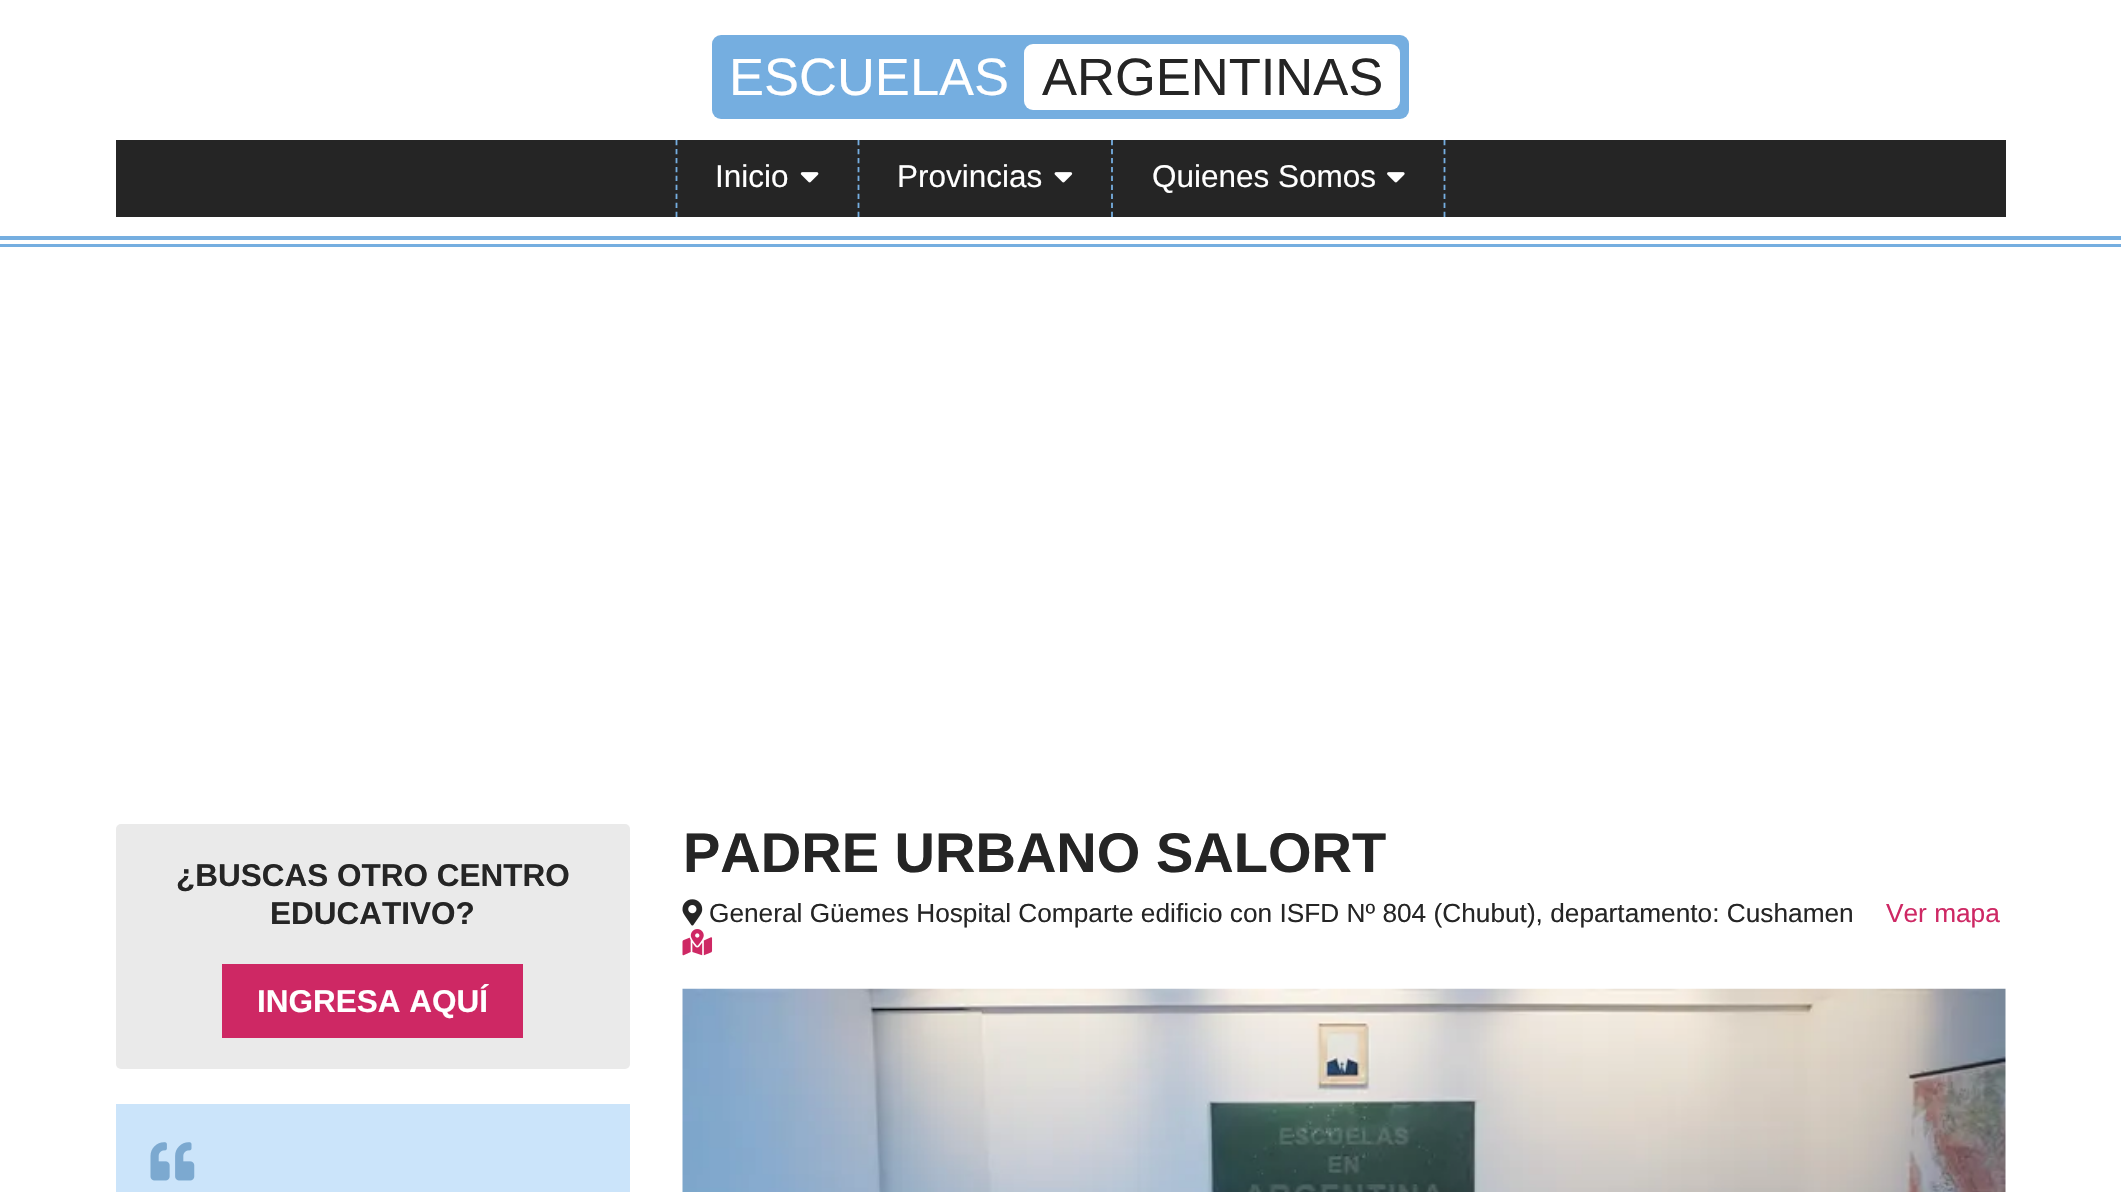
void draw(SkCanvas* canvas) {
	SkPaint fill;
	fill.setAntiAlias(true);
	auto makeFont = [&](const char* family, int weight, float size, bool italic = false) {
		SkFontStyle style(weight, SkFontStyle::kNormal_Width,
			italic ? SkFontStyle::kItalic_Slant : SkFontStyle::kUpright_Slant);
		SkFont result(fontMgr->matchFamilyStyle(family, style), size);
		result.setSubpixel(true);
		return result;
	};
	auto text = [&](const char* s, float x, float y, const SkFont& font) {
		canvas->drawString(s, x, y, font, fill);
	};
	auto box = [&](float l, float t, float r, float b) {
		canvas->drawRect(SkRect::MakeLTRB(l, t, r, b), fill);
	};
	auto roundBox = [&](float l, float t, float r, float b, float radius) {
		canvas->drawRoundRect(SkRect::MakeLTRB(l, t, r, b), radius, radius, fill);
	};
	auto picture = [&](const char* path, float l, float t, float r, float b) {
		auto image = SkImages::DeferredFromEncodedData(SkData::MakeFromFileName(path));
		canvas->drawImageRect(image, SkRect::MakeLTRB(l, t, r, b), SkSamplingOptions());
	};
	canvas->clear(0xFFFFFFFF);
	fill.setColor(0xFF75AEE0);
	box(0, 244, 2121, 247);
	roundBox(712, 35, 1409, 119, 9);
	fill.setColor(0xFFFFFFFF);
	roundBox(1024, 44, 1400, 110, 9);
	fill.setColor(0xFF252525);
	box(116, 140, 2006, 217);
	fill.setStyle(SkPaint::kStroke_Style);
	fill.setStrokeWidth(1.8f);
	fill.setColor(0xFF75AEE0);
	fill.setPathEffect(SkDashPathEffect::Make({{5.25f, 3.71f}}, 0));
	canvas->drawPath(SkPathBuilder().moveTo(858.5f, 140).lineTo(858.5f, 217).detach(), fill);
	fill.setPathEffect(nullptr);
	fill.setPathEffect(SkDashPathEffect::Make({{5.25f, 3.71f}}, 0));
	canvas->drawPath(SkPathBuilder().moveTo(676.5f, 140).lineTo(676.5f, 217).detach(), fill);
	fill.setPathEffect(nullptr);
	picture("image0.png", 800, 172, 819, 183);
	fill.setPathEffect(SkDashPathEffect::Make({{5.25f, 3.71f}}, 0));
	canvas->drawPath(SkPathBuilder().moveTo(1112, 140).lineTo(1112, 217).detach(), fill);
	fill.setPathEffect(nullptr);
	picture("image1.png", 1054, 172, 1073, 183);
	fill.setPathEffect(SkDashPathEffect::Make({{5.25f, 3.71f}}, 0));
	canvas->drawPath(SkPathBuilder().moveTo(1444.5f, 140).lineTo(1444.5f, 217).detach(), fill);
	fill.setPathEffect(nullptr);
	picture("image2.png", 1387, 172, 1405, 183);
	fill.setStyle(SkPaint::kFill_Style);
	box(0, 236, 2121, 240);
	fill.setColor(0xFFEAEAEA);
	roundBox(116, 824, 630, 1069, 5);
	fill.setColor(0xFFCE2864);
	box(222, 964, 523, 1038);
	fill.setColor(0xFFCBE4FA);
	box(116, 1104, 630, 1192);
	picture("image3.png", 150, 1142, 195, 1181);
	picture("image4.png", 682, 899, 703, 926);
	picture("image5.png", 682, 929, 713, 956);
	picture("image6.png", 682, 988, 2006, 1192);
	auto font1 = makeFont("Liberation Sans", 400, 52.5f);
	fill.setColor(0xFFFFFFFF);
	text("ESCUELAS", 729, 95, font1);
	fill.setColor(0xFF252525);
	text("ARGENTINAS", 1042, 95, font1);
	auto font2 = makeFont("Liberation Sans", 400, 31.5f);
	fill.setColor(0xFFFFFFFF);
	text("Inicio", 715, 187, font2);
	text("Provincias", 897, 187, font2);
	text("Quienes Somos", 1152, 187, font2);
	auto font3 = makeFont("Liberation Sans", 700, 31.5f);
	fill.setColor(0xFF252525);
	text("¿BUSCAS OTRO CENTRO", 176, 886, font3);
	text("EDUCATIVO?", 270, 924, font3);
	fill.setColor(0xFFFFFFFF);
	text("INGRESA AQUÍ", 257, 1012, font3);
	auto font4 = makeFont("Liberation Sans", 700, 56);
	fill.setColor(0xFF252525);
	text("PADRE URBANO SALORT", 683, 872, font4);
	auto font5 = makeFont("Liberation Sans", 400, 26.25f);
	text("General Güemes Hospital Comparte edificio con ISFD Nº 804 (Chubut), departamento: Cushamen", 709, 922, font5);
	fill.setColor(0xFFCE2864);
	text("Ver mapa", 1886, 922, font5);
}
